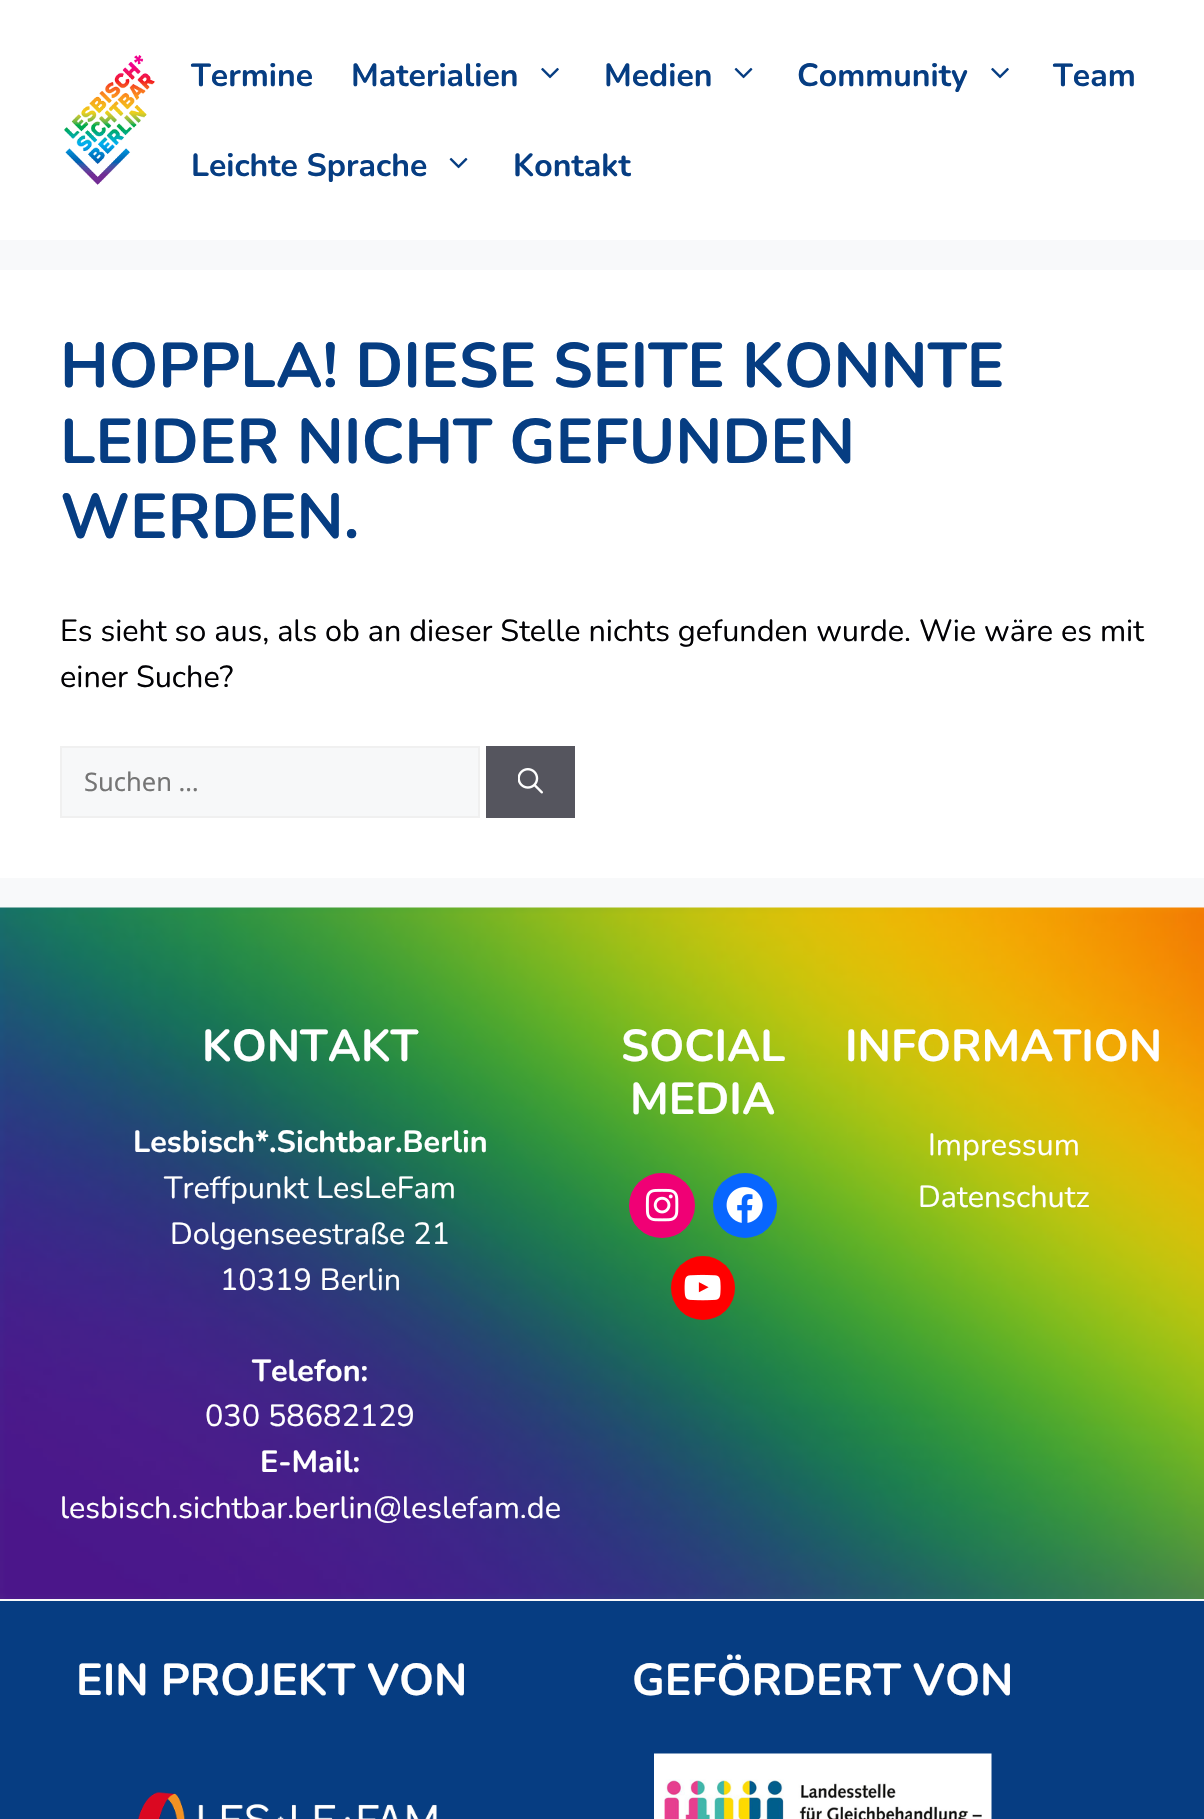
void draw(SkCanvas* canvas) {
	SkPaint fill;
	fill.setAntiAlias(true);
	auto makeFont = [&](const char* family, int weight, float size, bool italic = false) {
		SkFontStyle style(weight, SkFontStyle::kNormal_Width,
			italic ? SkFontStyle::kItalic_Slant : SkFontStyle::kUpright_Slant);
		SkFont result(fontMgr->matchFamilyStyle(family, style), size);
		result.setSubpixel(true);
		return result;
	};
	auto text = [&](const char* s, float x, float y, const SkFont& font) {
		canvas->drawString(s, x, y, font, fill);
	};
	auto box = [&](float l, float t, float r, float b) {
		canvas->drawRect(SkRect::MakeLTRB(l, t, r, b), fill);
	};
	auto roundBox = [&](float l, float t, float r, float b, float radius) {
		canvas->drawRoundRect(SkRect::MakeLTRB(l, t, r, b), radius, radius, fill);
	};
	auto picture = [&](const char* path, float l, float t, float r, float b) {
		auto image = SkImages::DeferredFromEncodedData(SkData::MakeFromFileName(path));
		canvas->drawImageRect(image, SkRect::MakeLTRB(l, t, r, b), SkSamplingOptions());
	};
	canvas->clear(0xFFF8F9FA);
	fill.setColor(0xFFFFFFFF);
	box(0, 0, 1204, 240);
	picture("image0.png", 64, 55, 155, 185);
	picture("image1.png", 541, 67, 559, 79);
	picture("image2.png", 734, 67, 753, 79);
	picture("image1.png", 991, 67, 1009, 79);
	picture("image2.png", 449, 157, 468, 169);
	box(0, 270, 1204, 878);
	fill.setColor(0xFFF7F8F9);
	canvas->drawRect(SkRect::MakeLTRB(61, 747, 479, 817), fill);
	fill.setStyle(SkPaint::kStroke_Style);
	fill.setStrokeWidth(2);
	fill.setColor(0xFFF0F0F0);
	canvas->drawRect(SkRect::MakeLTRB(61, 747, 479, 817), fill);
	fill.setStyle(SkPaint::kFill_Style);
	fill.setColor(0xFF55555E);
	box(486, 746, 575, 818);
	picture("image3.png", 518, 768, 543, 794);
	picture("image4.png", 0, 907, 1204, 1599);
	fill.setColor(0xFFF00075);
	roundBox(629, 1173, 695, 1238, 32.5f);
	picture("image5.png", 645, 1188, 679, 1222);
	fill.setColor(0xFF0866FF);
	roundBox(713, 1173, 777, 1238, 32);
	picture("image6.png", 726, 1187, 763, 1223);
	fill.setColor(0xFFFF0000);
	canvas->drawCircle(703, 1288, 32, fill);
	picture("image7.png", 684, 1274, 721, 1301);
	fill.setColor(0xFF063D82);
	box(0, 1601, 1204, 1819);
	picture("image8.png", 138, 1792, 437, 1819);
	picture("image9.png", 654, 1753, 992, 1819);
	auto font1 = makeFont("Nunito", 200, 32);
	text("Termine", 191, 86, font1);
	text("Materialien", 351, 86, font1);
	text("Medien", 604, 86, font1);
	text("Community", 797, 86, font1);
	text("Team", 1053, 86, font1);
	text("Leichte Sprache", 191, 176, font1);
	text("Kontakt", 513, 176, font1);
	auto font2 = makeFont("Nunito", 200, 63);
	text("HOPPLA! DIESE SEITE KONNTE", 60, 387, font2);
	text("LEIDER NICHT GEFUNDEN", 60, 463, font2);
	text("WERDEN.", 60, 538, font2);
	auto font3 = makeFont("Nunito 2", 200, 30.6f);
	fill.setColor(0xFF020205);
	text("Es sieht so aus, als ob an dieser Stelle nichts gefunden wurde. Wie wäre es mit", 60, 641, font3);
	text("einer Suche?", 60, 687, font3);
	auto font4 = makeFont("Noto Sans", 400, 25.5f);
	fill.setColor(0xFF757575);
	text("Suchen …", 84, 791, font4);
	auto font5 = makeFont("Nunito", 200, 44.6f);
	fill.setColor(0xFFFFFFFF);
	text("KONTAKT", 202, 1061, font5);
	auto font6 = makeFont("Nunito", 200, 30.6f);
	text("Lesbisch*.Sichtbar.Berlin", 133, 1152, font6);
	text("Treffpunkt LesLeFam", 164, 1198, font3);
	text("Dolgenseestraße 21", 170, 1244, font3);
	text("10319 Berlin", 220, 1290, font3);
	text("Telefon:", 252, 1381, font6);
	text("030 58682129", 205, 1426, font3);
	text("E-Mail:", 260, 1472, font6);
	text("lesbisch.sichtbar.berlin@leslefam.de", 60, 1518, font3);
	text("SOCIAL", 621, 1061, font5);
	text("MEDIA", 630, 1114, font5);
	text("INFORMATION", 845, 1061, font5);
	text("Impressum", 928, 1155, font3);
	text("Datenschutz", 918, 1207, font3);
	text("EIN PROJEKT VON", 76, 1695, font5);
	text("GEFÖRDERT VON", 632, 1695, font5);
}
